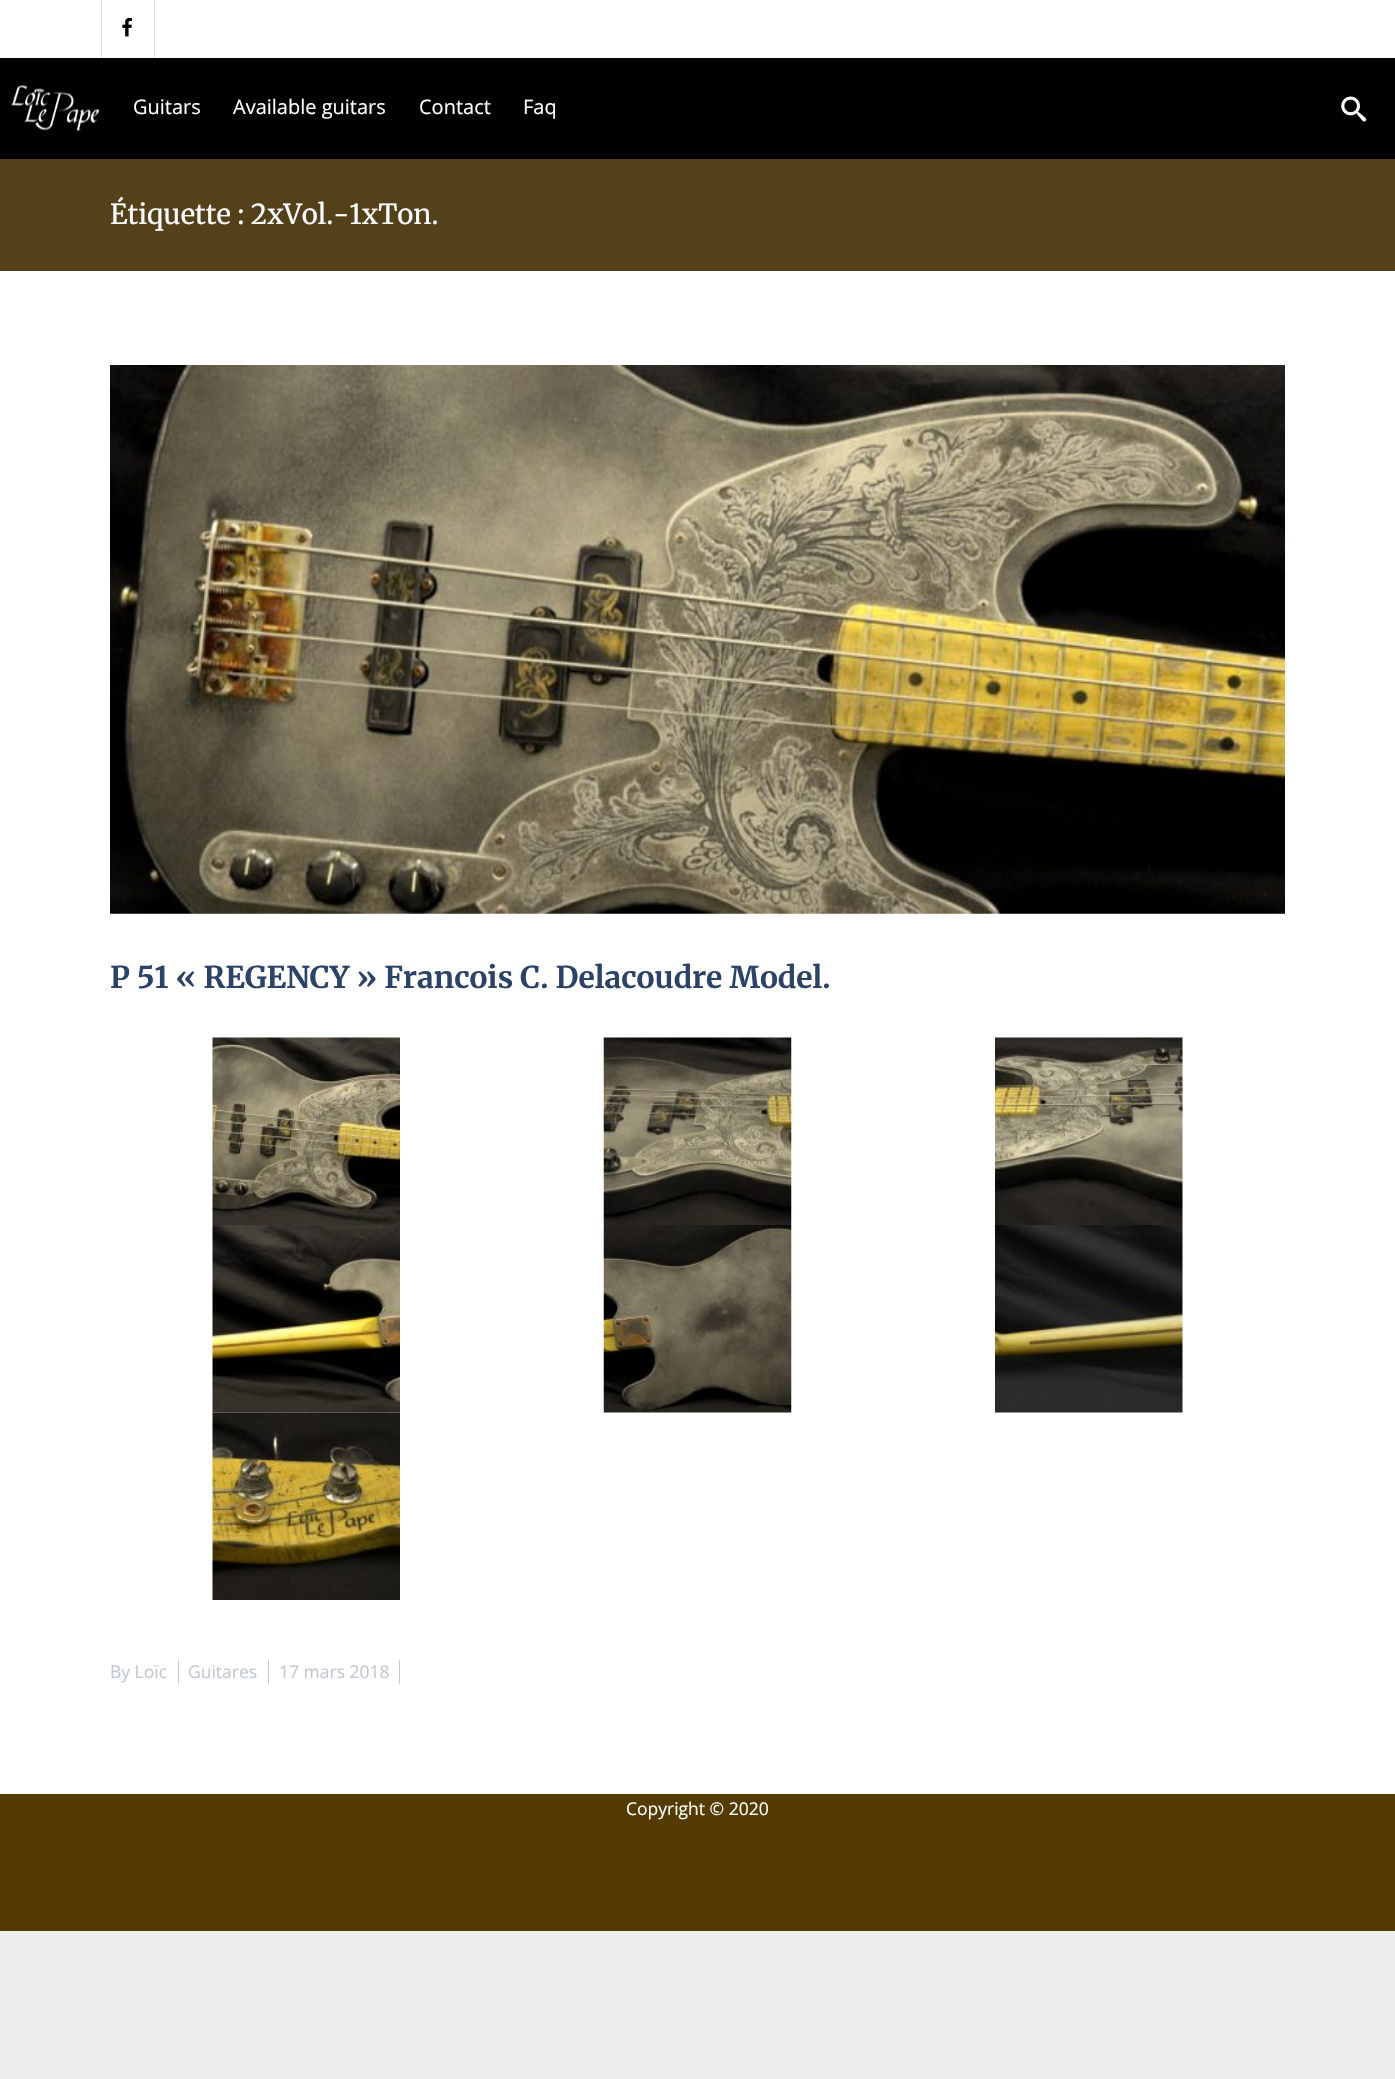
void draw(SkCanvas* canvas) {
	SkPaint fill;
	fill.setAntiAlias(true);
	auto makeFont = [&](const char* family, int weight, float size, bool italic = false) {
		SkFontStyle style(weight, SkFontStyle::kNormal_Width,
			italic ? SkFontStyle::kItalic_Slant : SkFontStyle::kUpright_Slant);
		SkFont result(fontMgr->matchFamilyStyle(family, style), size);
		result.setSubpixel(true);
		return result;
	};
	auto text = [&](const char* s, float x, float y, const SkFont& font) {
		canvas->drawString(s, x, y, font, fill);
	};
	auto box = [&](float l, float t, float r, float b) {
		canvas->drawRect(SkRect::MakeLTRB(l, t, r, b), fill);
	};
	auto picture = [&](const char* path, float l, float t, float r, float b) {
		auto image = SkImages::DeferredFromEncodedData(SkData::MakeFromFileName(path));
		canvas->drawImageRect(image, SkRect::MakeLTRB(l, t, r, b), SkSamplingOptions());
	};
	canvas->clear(0xFFEEEEEE);
	fill.setColor(0xFFFFFFFF);
	box(0, 271, 1395, 1794);
	fill.setColor(0xFF000000);
	box(0, 58, 1395, 159);
	fill.setColor(0xFFFFFFFF);
	box(0, 0, 1395, 58);
	fill.setColor(0xFFDDDDDD);
	box(154, 0, 155, 58);
	box(101, 0, 102, 58);
	picture("image0.png", 122, 17, 132, 37);
	picture("image1.png", 11, 85, 100, 131);
	picture("image2.png", 1341, 96, 1367, 122);
	fill.setColor(0xFF544019);
	box(0, 159, 1395, 271);
	picture("image3.png", 110, 365, 1285, 914);
	picture("image4.png", 212, 1037, 400, 1225);
	picture("image5.png", 603, 1037, 792, 1225);
	picture("image6.png", 995, 1037, 1183, 1225);
	picture("image7.png", 212, 1225, 400, 1413);
	picture("image8.png", 603, 1225, 792, 1413);
	picture("image9.png", 995, 1225, 1183, 1413);
	picture("image10.png", 212, 1412, 400, 1600);
	fill.setColor(0xFFC1C8CF);
	box(178, 1660, 179, 1684);
	box(268, 1660, 269, 1684);
	box(399, 1660, 400, 1684);
	fill.setColor(0xFF533B02);
	box(0, 1794, 1395, 1931);
	auto font1 = makeFont("Open Sans", 400, 20);
	fill.setColor(0xFFFFFFFF);
	text("Guitars", 133, 114, font1);
	text("Available guitars", 233, 114, font1);
	text("Contact", 419, 114, font1);
	text("Faq", 523, 114, font1);
	auto font2 = makeFont("Merriweather", 400, 27.5f);
	text("Étiquette : 2xVol.-1xTon.", 110, 224, font2);
	auto font3 = makeFont("Merriweather", 700, 30);
	fill.setColor(0xFF2B4269);
	text("P 51 « REGENCY » Francois C. Delacoudre Model.", 110, 988, font3);
	auto font4 = makeFont("Open Sans", 400, 17.5f);
	fill.setColor(0xFFC1C8CF);
	text("By Loïc", 110, 1678, font4);
	text("Guitares", 188, 1678, font4);
	text("17 mars 2018", 279, 1678, font4);
	fill.setColor(0xFFFFFFFF);
	text("Copyright © 2020", 626, 1815, font4);
}
